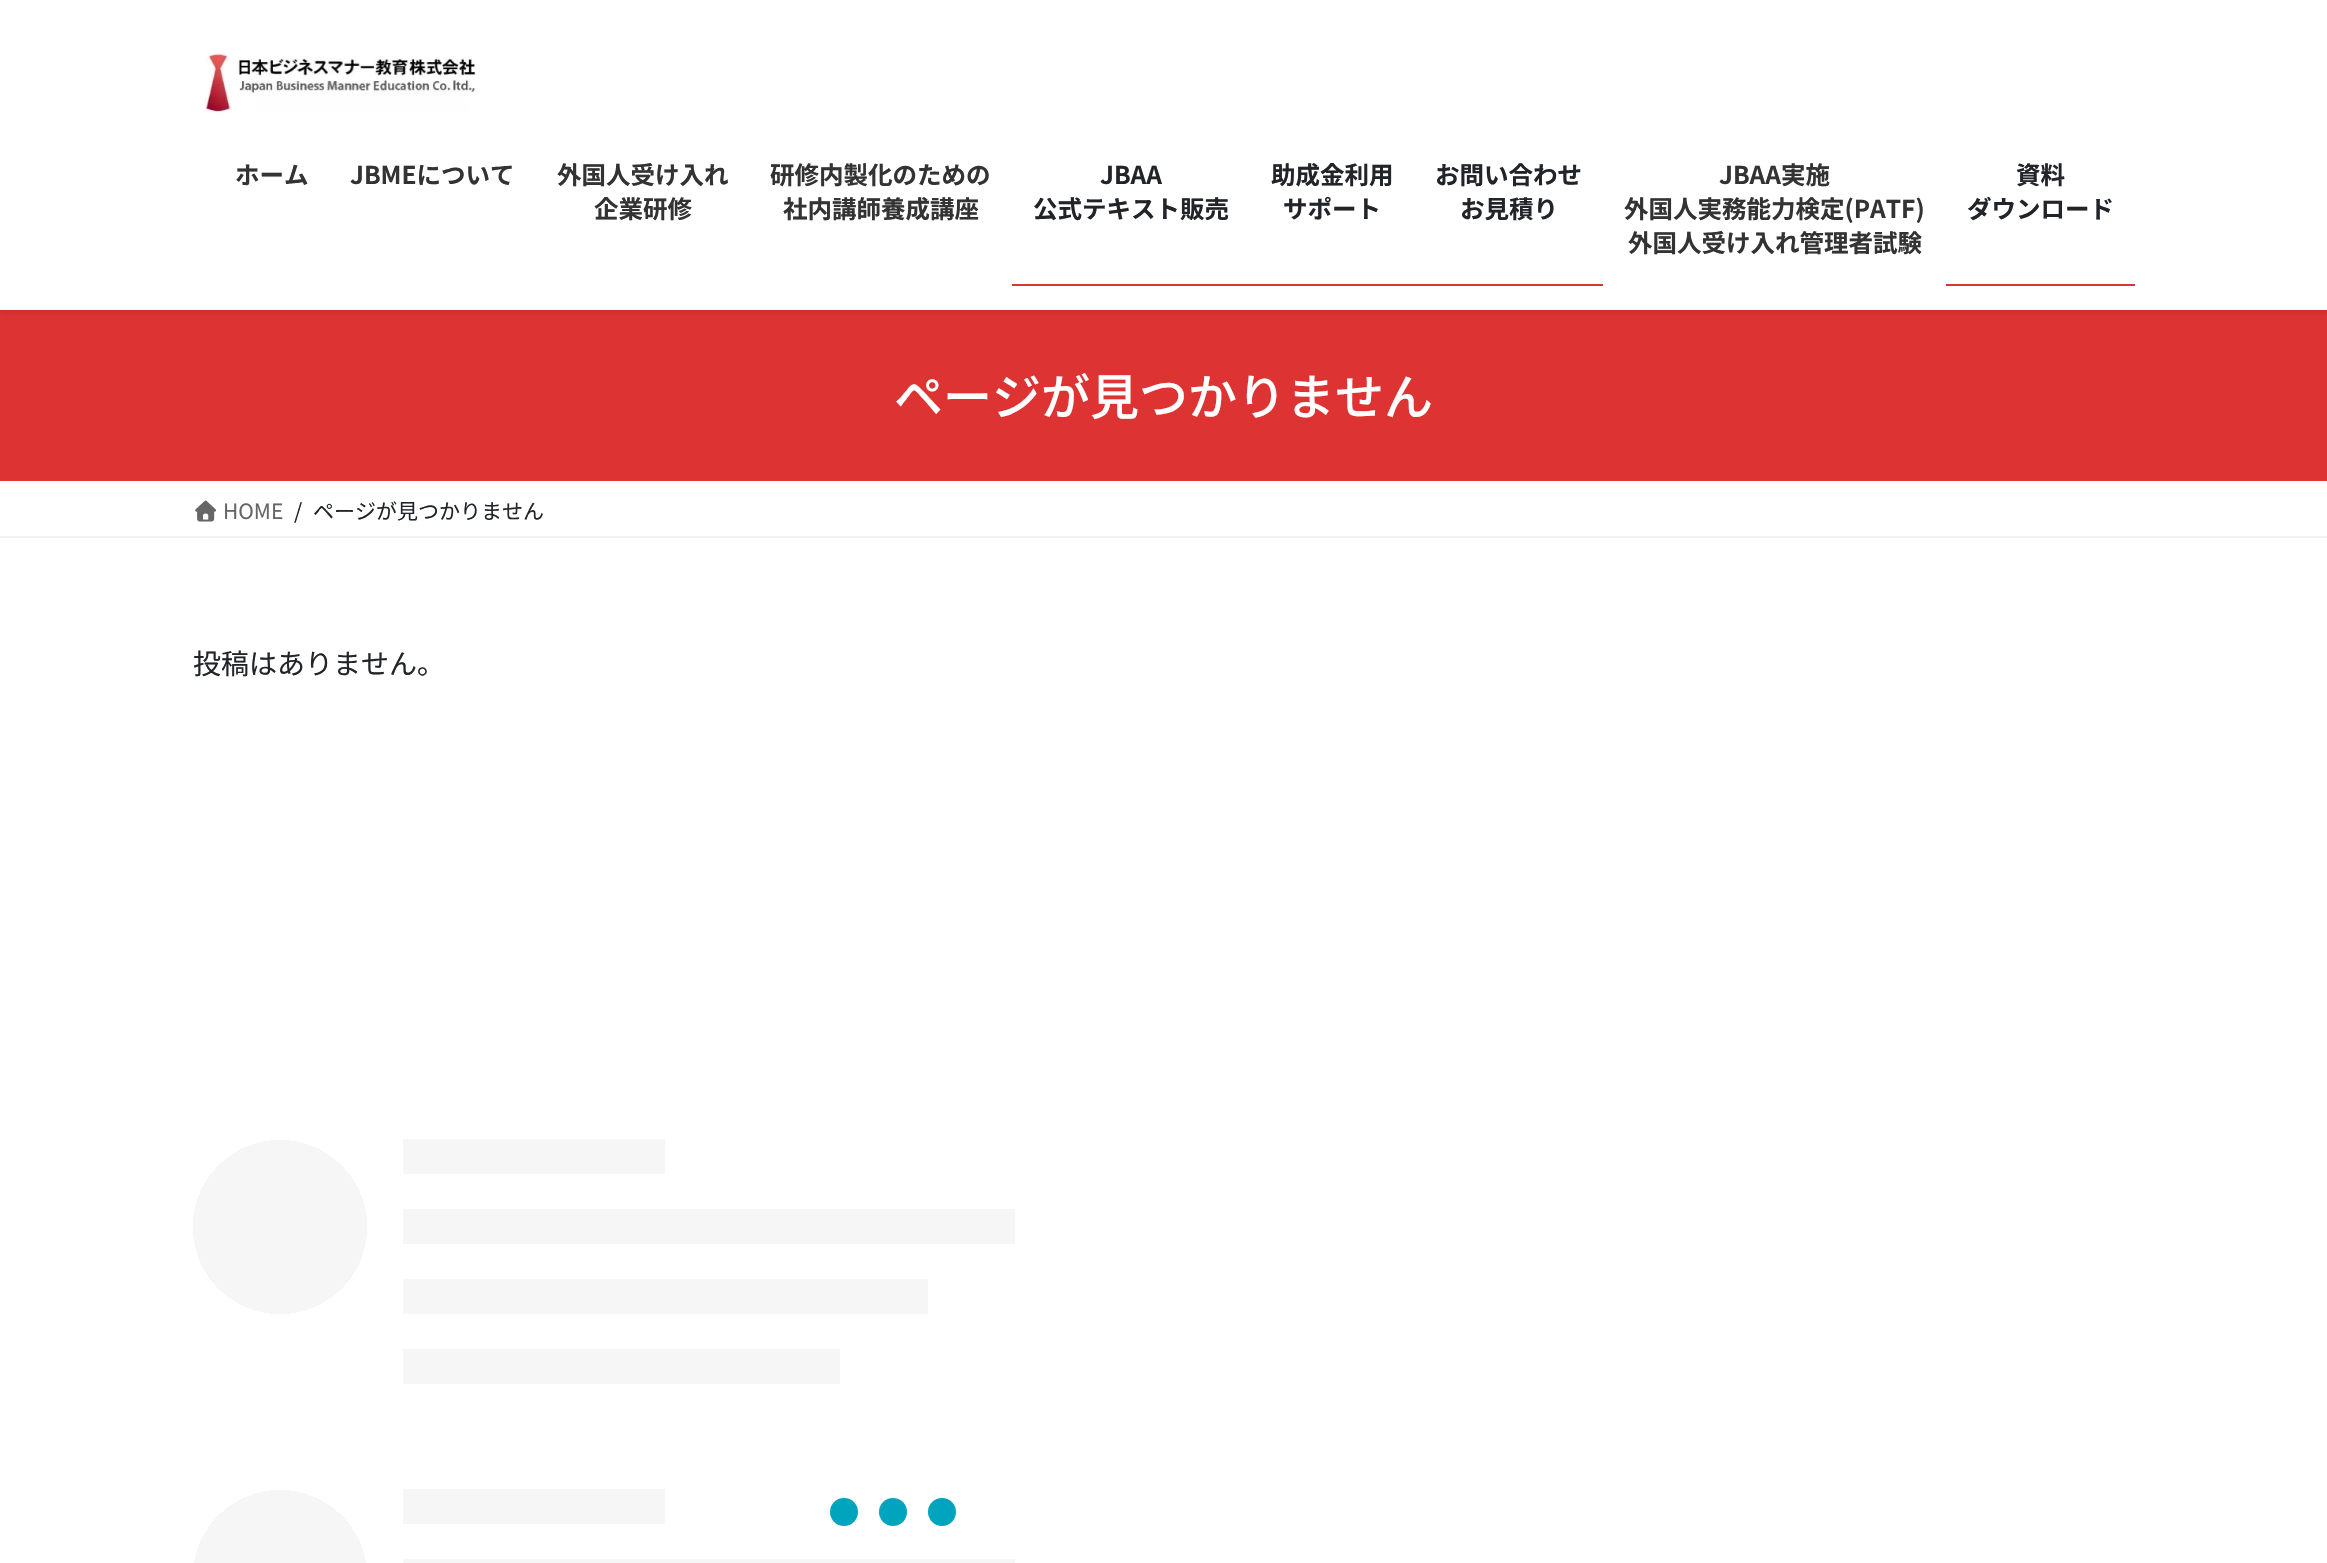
void draw(SkCanvas* canvas) {
	SkPaint fill;
	fill.setAntiAlias(true);
	auto makeFont = [&](const char* family, int weight, float size, bool italic = false) {
		SkFontStyle style(weight, SkFontStyle::kNormal_Width,
			italic ? SkFontStyle::kItalic_Slant : SkFontStyle::kUpright_Slant);
		SkFont result(fontMgr->matchFamilyStyle(family, style), size);
		result.setSubpixel(true);
		return result;
	};
	auto text = [&](const char* s, float x, float y, const SkFont& font) {
		canvas->drawString(s, x, y, font, fill);
	};
	auto box = [&](float l, float t, float r, float b) {
		canvas->drawRect(SkRect::MakeLTRB(l, t, r, b), fill);
	};
	auto picture = [&](const char* path, float l, float t, float r, float b) {
		auto image = SkImages::DeferredFromEncodedData(SkData::MakeFromFileName(path));
		canvas->drawImageRect(image, SkRect::MakeLTRB(l, t, r, b), SkSamplingOptions());
	};
	canvas->clear(0xFFFFFFFF);
	fill.setColor(0xFFDD3333);
	box(0, 310, 2327, 481);
	fill.setColor(0x1A000000);
	fill.setMaskFilter(SkMaskFilter::MakeBlur(kNormal_SkBlurStyle, 2.5f));
	canvas->drawRect(SkRect::MakeLTRB(0, 2, 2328, 312), fill);
	fill.setMaskFilter(nullptr);
	fill.setColor(0xFFFFFFFF);
	box(0, 0, 2327, 310);
	picture("image0.png", 205, 52, 476, 113);
	fill.setColor(0xFFDD3333);
	box(1012, 284, 1603, 286);
	box(1946, 284, 2135, 286);
	fill.setColor(0xFFF2F2F2);
	box(0, 536, 2327, 538);
	picture("image1.png", 195, 500, 217, 522);
	fill.setColor(0xFFF6F6F6);
	box(403, 1349, 840, 1384);
	box(403, 1279, 928, 1314);
	box(403, 1209, 1015, 1244);
	box(403, 1559, 1015, 1563);
	box(403, 1139, 665, 1174);
	box(403, 1489, 665, 1524);
	{
		const SkColor colors[] = {0xFFF6F6F6, 0xFFFFFFFF};
		const float stops[] = {0.99f, 0.99f};
		fill.setShader(SkGradientShader::MakeRadial({280, 1227}, 88, colors, stops, 2, SkTileMode::kClamp));
		fill.setAlpha(255);
	}
	box(193, 1140, 367, 1314);
	{
		const SkColor colors[] = {0xFFF6F6F6, 0xFFFFFFFF};
		const float stops[] = {0.99f, 0.99f};
		fill.setShader(SkGradientShader::MakeRadial({280, 1577}, 88, colors, stops, 2, SkTileMode::kClamp));
		fill.setAlpha(255);
	}
	box(194, 1490, 366, 1563);
	fill.setShader(nullptr);
	fill.setColor(0xFF00A4BD);
	canvas->drawCircle(844, 1512, 14, fill);
	canvas->drawCircle(893, 1512, 14, fill);
	canvas->drawCircle(942, 1512, 14, fill);
	auto font1 = makeFont("Noto Sans JP", 700, 24.5f);
	fill.setColor(0xFF333333);
	text("ホーム", 235, 184, font1);
	text("JBMEについて", 350, 184, font1);
	text("外国人受け入れ", 557, 184, font1);
	text("企業研修", 594, 218, font1);
	text("研修内製化のための", 770, 184, font1);
	text("社内講師養成講座", 783, 218, font1);
	fill.setColor(0xFF212529);
	text("JBAA", 1100, 184, font1);
	text("公式テキスト販売", 1033, 218, font1);
	text("助成金利用", 1271, 184, font1);
	text("サポート", 1283, 218, font1);
	text("お問い合わせ", 1435, 184, font1);
	text("お見積り", 1460, 218, font1);
	fill.setColor(0xFF333333);
	text("JBAA実施", 1719, 184, font1);
	text("外国人実務能力検定(PATF)", 1624, 218, font1);
	text("外国人受け入れ管理者試験", 1628, 252, font1);
	fill.setColor(0xFF212529);
	text("資料", 2016, 184, font1);
	text("ダウンロード", 1967, 218, font1);
	auto font2 = makeFont("Noto Sans JP", 500, 49);
	fill.setColor(0xFFFFFFFF);
	text("ページが見つかりません", 894, 415, font2);
	auto font3 = makeFont("Noto Sans JP", 400, 21);
	fill.setColor(0xFF666666);
	text("HOME", 223, 519, font3);
	fill.setColor(0xFF212529);
	text("/", 294, 519, font3);
	text("ページが見つかりません", 313, 519, font3);
	auto font4 = makeFont("Noto Sans JP", 400, 28);
	text("投稿はありません。", 193, 674, font4);
}
